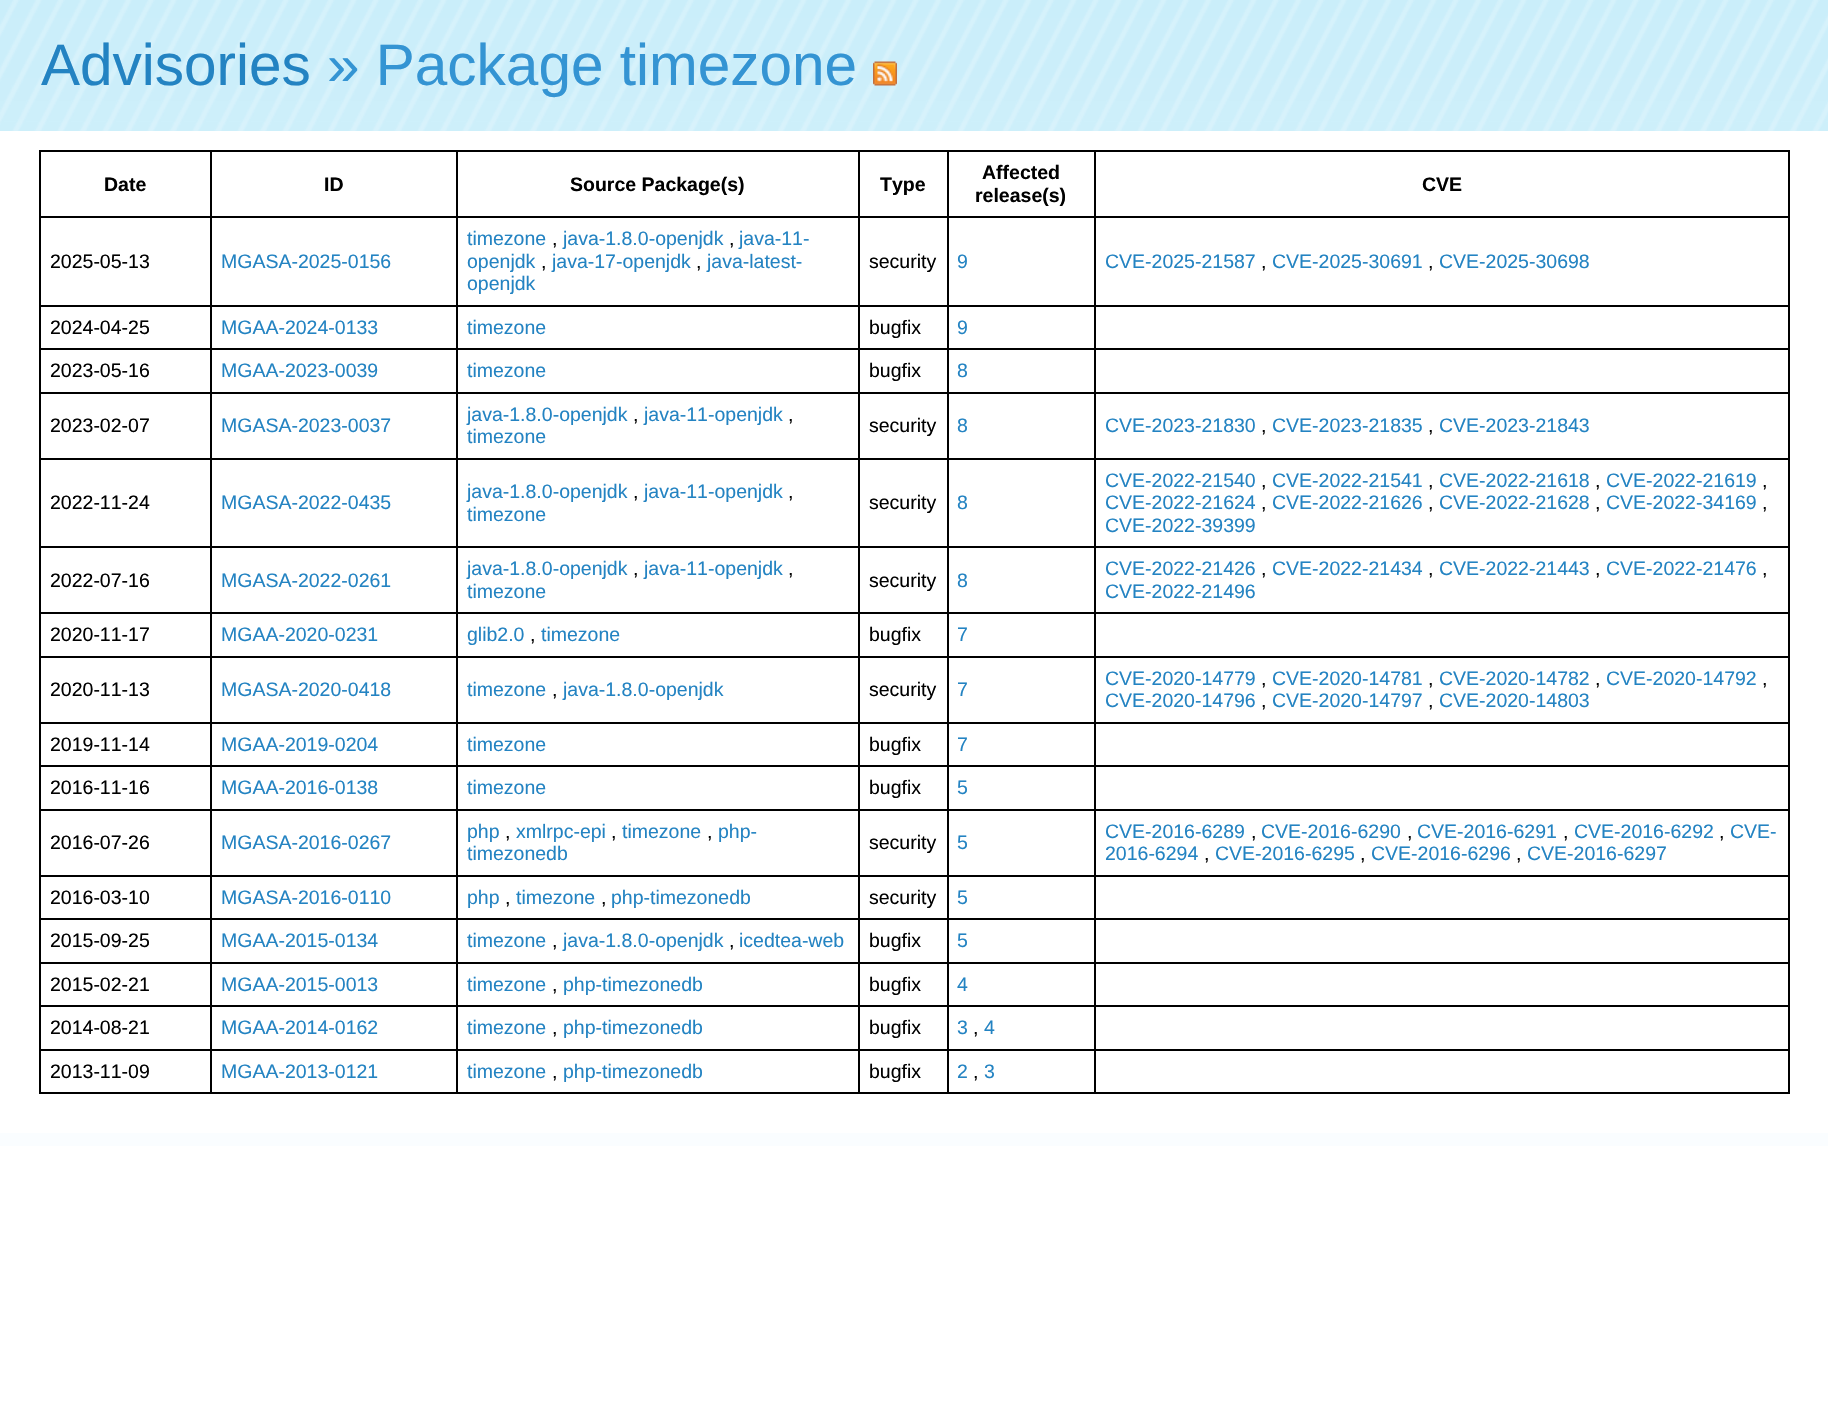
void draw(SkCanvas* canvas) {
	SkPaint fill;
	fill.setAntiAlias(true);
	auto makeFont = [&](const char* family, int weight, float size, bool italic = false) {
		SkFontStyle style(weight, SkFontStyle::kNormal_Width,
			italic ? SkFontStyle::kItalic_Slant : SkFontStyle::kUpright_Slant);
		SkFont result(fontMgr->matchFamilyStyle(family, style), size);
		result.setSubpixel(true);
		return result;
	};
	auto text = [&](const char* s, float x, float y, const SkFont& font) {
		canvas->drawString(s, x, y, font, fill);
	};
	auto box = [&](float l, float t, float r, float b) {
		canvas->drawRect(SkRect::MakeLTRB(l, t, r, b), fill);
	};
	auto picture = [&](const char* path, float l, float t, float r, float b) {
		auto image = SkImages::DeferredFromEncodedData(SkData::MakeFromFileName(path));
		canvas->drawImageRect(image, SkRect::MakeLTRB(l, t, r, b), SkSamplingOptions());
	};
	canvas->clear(0xFFFFFFFF);
	picture("image0.png", 0, 0, 1828, 1146);
	picture("image1.png", 873, 61, 897, 86);
	fill.setColor(0xFFFFFFFF);
	box(0, 131, 1828, 1133);
	fill.setColor(0xFF000000);
	box(1094, 150, 1790, 152);
	box(1094, 216, 1790, 218);
	box(1094, 305, 1790, 307);
	box(1094, 348, 1790, 350);
	box(1094, 392, 1790, 394);
	box(1094, 458, 1790, 460);
	box(1094, 546, 1790, 548);
	box(1094, 612, 1790, 614);
	box(1094, 656, 1790, 658);
	box(1094, 722, 1790, 724);
	box(1094, 765, 1790, 767);
	box(1094, 809, 1790, 811);
	box(1094, 875, 1790, 877);
	box(1094, 918, 1790, 920);
	box(1094, 962, 1790, 964);
	box(1094, 1005, 1790, 1007);
	box(1094, 1049, 1790, 1051);
	box(1788, 1049, 1790, 1094);
	box(1094, 1092, 1790, 1094);
	box(1094, 1049, 1096, 1094);
	box(947, 1049, 1095, 1051);
	box(1094, 1005, 1096, 1050);
	box(947, 1005, 1095, 1007);
	box(1094, 962, 1096, 1007);
	box(947, 962, 1095, 964);
	box(1094, 918, 1096, 963);
	box(947, 918, 1095, 920);
	box(1094, 875, 1096, 920);
	box(947, 875, 1095, 877);
	box(1094, 809, 1096, 876);
	box(947, 809, 1095, 811);
	box(1094, 765, 1096, 810);
	box(947, 765, 1095, 767);
	box(1094, 722, 1096, 767);
	box(947, 722, 1095, 724);
	box(1094, 656, 1096, 723);
	box(947, 656, 1095, 658);
	box(1094, 612, 1096, 657);
	box(947, 612, 1095, 614);
	box(1094, 546, 1096, 614);
	box(947, 546, 1095, 548);
	box(1094, 458, 1096, 548);
	box(947, 458, 1095, 460);
	box(1094, 392, 1096, 459);
	box(947, 392, 1095, 394);
	box(1094, 348, 1096, 393);
	box(947, 348, 1095, 350);
	box(1094, 305, 1096, 350);
	box(947, 305, 1095, 307);
	box(1094, 216, 1096, 306);
	box(947, 216, 1095, 218);
	box(1094, 150, 1096, 218);
	box(947, 150, 1095, 152);
	box(947, 1092, 1095, 1094);
	box(947, 1049, 949, 1094);
	box(858, 1049, 948, 1051);
	box(947, 1005, 949, 1050);
	box(858, 1005, 948, 1007);
	box(947, 962, 949, 1007);
	box(858, 962, 948, 964);
	box(947, 918, 949, 963);
	box(858, 918, 948, 920);
	box(947, 875, 949, 920);
	box(858, 875, 948, 877);
	box(947, 809, 949, 876);
	box(858, 809, 948, 811);
	box(947, 765, 949, 810);
	box(858, 765, 948, 767);
	box(947, 722, 949, 767);
	box(858, 722, 948, 724);
	box(947, 656, 949, 723);
	box(858, 656, 948, 658);
	box(947, 612, 949, 657);
	box(858, 612, 948, 614);
	box(947, 546, 949, 614);
	box(858, 546, 948, 548);
	box(947, 458, 949, 548);
	box(858, 458, 948, 460);
	box(947, 392, 949, 459);
	box(858, 392, 948, 394);
	box(947, 348, 949, 393);
	box(858, 348, 948, 350);
	box(947, 305, 949, 350);
	box(858, 305, 948, 307);
	box(947, 216, 949, 306);
	box(858, 216, 948, 218);
	box(947, 150, 949, 218);
	box(858, 150, 948, 152);
	box(858, 1092, 948, 1094);
	box(858, 1049, 860, 1094);
	box(456, 1049, 860, 1051);
	box(858, 1005, 860, 1050);
	box(456, 1005, 860, 1007);
	box(858, 962, 860, 1007);
	box(456, 962, 860, 964);
	box(858, 918, 860, 963);
	box(456, 918, 860, 920);
	box(858, 875, 860, 920);
	box(456, 875, 860, 877);
	box(858, 809, 860, 876);
	box(456, 809, 860, 811);
	box(858, 765, 860, 810);
	box(456, 765, 860, 767);
	box(858, 722, 860, 767);
	box(456, 722, 860, 724);
	box(858, 656, 860, 723);
	box(456, 656, 860, 658);
	box(858, 612, 860, 657);
	box(456, 612, 860, 614);
	box(858, 546, 860, 614);
	box(456, 546, 860, 548);
	box(858, 458, 860, 548);
	box(456, 458, 860, 460);
	box(858, 392, 860, 459);
	box(456, 392, 860, 394);
	box(858, 348, 860, 393);
	box(456, 348, 860, 350);
	box(858, 305, 860, 350);
	box(456, 305, 860, 307);
	box(858, 216, 860, 306);
	box(456, 216, 860, 218);
	box(858, 150, 860, 218);
	box(456, 150, 860, 152);
	box(456, 1092, 860, 1094);
	box(456, 1049, 458, 1094);
	box(210, 1049, 458, 1051);
	box(456, 1005, 458, 1050);
	box(210, 1005, 458, 1007);
	box(456, 962, 458, 1007);
	box(210, 962, 458, 964);
	box(456, 918, 458, 963);
	box(210, 918, 458, 920);
	box(456, 875, 458, 920);
	box(210, 875, 458, 877);
	box(456, 809, 458, 876);
	box(210, 809, 458, 811);
	box(456, 765, 458, 810);
	box(210, 765, 458, 767);
	box(456, 722, 458, 767);
	box(210, 722, 458, 724);
	box(456, 656, 458, 723);
	box(210, 656, 458, 658);
	box(456, 612, 458, 657);
	box(210, 612, 458, 614);
	box(456, 546, 458, 614);
	box(210, 546, 458, 548);
	box(456, 458, 458, 548);
	box(210, 458, 458, 460);
	box(456, 392, 458, 459);
	box(210, 392, 458, 394);
	box(456, 348, 458, 393);
	box(210, 348, 458, 350);
	box(456, 305, 458, 350);
	box(210, 305, 458, 307);
	box(456, 216, 458, 306);
	box(210, 216, 458, 218);
	box(456, 150, 458, 218);
	box(210, 150, 458, 152);
	box(210, 1092, 458, 1094);
	box(210, 1049, 212, 1094);
	box(39, 1049, 212, 1051);
	box(210, 1005, 212, 1050);
	box(39, 1005, 212, 1007);
	box(210, 962, 212, 1007);
	box(39, 962, 212, 964);
	box(210, 918, 212, 963);
	box(39, 918, 212, 920);
	box(210, 875, 212, 920);
	box(39, 875, 212, 877);
	box(210, 809, 212, 876);
	box(39, 809, 212, 811);
	box(210, 765, 212, 810);
	box(39, 765, 212, 767);
	box(210, 722, 212, 767);
	box(39, 722, 212, 724);
	box(210, 656, 212, 723);
	box(39, 656, 212, 658);
	box(210, 612, 212, 657);
	box(39, 612, 212, 614);
	box(210, 546, 212, 614);
	box(39, 546, 212, 548);
	box(210, 458, 212, 548);
	box(39, 458, 212, 460);
	box(210, 392, 212, 459);
	box(39, 392, 212, 394);
	box(210, 348, 212, 393);
	box(39, 348, 212, 350);
	box(210, 305, 212, 350);
	box(39, 305, 212, 307);
	box(210, 216, 212, 306);
	box(39, 216, 212, 218);
	box(210, 150, 212, 218);
	box(39, 150, 212, 152);
	box(39, 1092, 212, 1094);
	box(39, 1049, 41, 1094);
	box(39, 1005, 41, 1050);
	box(39, 962, 41, 1007);
	box(39, 918, 41, 963);
	box(39, 875, 41, 920);
	box(39, 809, 41, 876);
	box(39, 765, 41, 810);
	box(39, 722, 41, 767);
	box(39, 656, 41, 723);
	box(39, 612, 41, 657);
	box(39, 546, 41, 614);
	box(39, 458, 41, 548);
	box(39, 392, 41, 459);
	box(39, 348, 41, 393);
	box(39, 305, 41, 350);
	box(39, 216, 41, 306);
	box(39, 150, 41, 218);
	box(1788, 1005, 1790, 1050);
	box(1788, 962, 1790, 1007);
	box(1788, 918, 1790, 963);
	box(1788, 875, 1790, 920);
	box(1788, 809, 1790, 876);
	box(1788, 765, 1790, 810);
	box(1788, 722, 1790, 767);
	box(1788, 656, 1790, 723);
	box(1788, 612, 1790, 657);
	box(1788, 546, 1790, 614);
	box(1788, 458, 1790, 548);
	box(1788, 392, 1790, 459);
	box(1788, 348, 1790, 393);
	box(1788, 305, 1790, 350);
	box(1788, 216, 1790, 306);
	box(1788, 150, 1790, 218);
	auto font1 = makeFont("Liberation Sans", 400, 58.5f);
	fill.setColor(0xFF2383C2);
	text("Advisories", 41, 85, font1);
	fill.setColor(0xFF3494D3);
	text("» Package timezone", 327, 85, font1);
	auto font2 = makeFont("Liberation Sans", 700, 19.5f);
	fill.setColor(0xFF000000);
	text("Date", 104, 191, font2);
	text("ID", 324, 191, font2);
	text("Source Package(s)", 570, 191, font2);
	text("Type", 880, 191, font2);
	text("Affected", 982, 179, font2);
	text("release(s)", 975, 202, font2);
	text("CVE", 1422, 191, font2);
	auto font3 = makeFont("Liberation Sans", 400, 19.5f);
	text("2025-05-13", 50, 268, font3);
	fill.setColor(0xFF2383C2);
	text("MGASA-2025-0156", 221, 268, font3);
	text("timezone", 467, 245, font3);
	fill.setColor(0xFF000000);
	text(",", 552, 245, font3);
	fill.setColor(0xFF2383C2);
	text("java-1.8.0-openjdk", 563, 245, font3);
	fill.setColor(0xFF000000);
	text(",", 729, 245, font3);
	fill.setColor(0xFF2383C2);
	text("java-11-", 739, 245, font3);
	text("openjdk", 467, 268, font3);
	fill.setColor(0xFF000000);
	text(",", 541, 268, font3);
	fill.setColor(0xFF2383C2);
	text("java-17-openjdk", 552, 268, font3);
	fill.setColor(0xFF000000);
	text(",", 696, 268, font3);
	fill.setColor(0xFF2383C2);
	text("java-latest-", 707, 268, font3);
	text("openjdk", 467, 290, font3);
	fill.setColor(0xFF000000);
	text("security", 869, 268, font3);
	fill.setColor(0xFF2383C2);
	text("9", 957, 268, font3);
	text("CVE-2025-21587", 1105, 268, font3);
	fill.setColor(0xFF000000);
	text(",", 1261, 268, font3);
	fill.setColor(0xFF2383C2);
	text("CVE-2025-30691", 1272, 268, font3);
	fill.setColor(0xFF000000);
	text(",", 1428, 268, font3);
	fill.setColor(0xFF2383C2);
	text("CVE-2025-30698", 1439, 268, font3);
	fill.setColor(0xFF000000);
	text("2024-04-25", 50, 334, font3);
	fill.setColor(0xFF2383C2);
	text("MGAA-2024-0133", 221, 334, font3);
	text("timezone", 467, 334, font3);
	fill.setColor(0xFF000000);
	text("bugfix", 869, 334, font3);
	fill.setColor(0xFF2383C2);
	text("9", 957, 334, font3);
	fill.setColor(0xFF000000);
	text("2023-05-16", 50, 377, font3);
	fill.setColor(0xFF2383C2);
	text("MGAA-2023-0039", 221, 377, font3);
	text("timezone", 467, 377, font3);
	fill.setColor(0xFF000000);
	text("bugfix", 869, 377, font3);
	fill.setColor(0xFF2383C2);
	text("8", 957, 377, font3);
	fill.setColor(0xFF000000);
	text("2023-02-07", 50, 432, font3);
	fill.setColor(0xFF2383C2);
	text("MGASA-2023-0037", 221, 432, font3);
	text("java-1.8.0-openjdk", 467, 421, font3);
	fill.setColor(0xFF000000);
	text(",", 633, 421, font3);
	fill.setColor(0xFF2383C2);
	text("java-11-openjdk", 644, 421, font3);
	fill.setColor(0xFF000000);
	text(",", 788, 421, font3);
	fill.setColor(0xFF2383C2);
	text("timezone", 467, 443, font3);
	fill.setColor(0xFF000000);
	text("security", 869, 432, font3);
	fill.setColor(0xFF2383C2);
	text("8", 957, 432, font3);
	text("CVE-2023-21830", 1105, 432, font3);
	fill.setColor(0xFF000000);
	text(",", 1261, 432, font3);
	fill.setColor(0xFF2383C2);
	text("CVE-2023-21835", 1272, 432, font3);
	fill.setColor(0xFF000000);
	text(",", 1428, 432, font3);
	fill.setColor(0xFF2383C2);
	text("CVE-2023-21843", 1439, 432, font3);
	fill.setColor(0xFF000000);
	text("2022-11-24", 50, 509, font3);
	fill.setColor(0xFF2383C2);
	text("MGASA-2022-0435", 221, 509, font3);
	text("java-1.8.0-openjdk", 467, 498, font3);
	fill.setColor(0xFF000000);
	text(",", 633, 498, font3);
	fill.setColor(0xFF2383C2);
	text("java-11-openjdk", 644, 498, font3);
	fill.setColor(0xFF000000);
	text(",", 788, 498, font3);
	fill.setColor(0xFF2383C2);
	text("timezone", 467, 521, font3);
	fill.setColor(0xFF000000);
	text("security", 869, 509, font3);
	fill.setColor(0xFF2383C2);
	text("8", 957, 509, font3);
	text("CVE-2022-21540", 1105, 487, font3);
	fill.setColor(0xFF000000);
	text(",", 1261, 487, font3);
	fill.setColor(0xFF2383C2);
	text("CVE-2022-21541", 1272, 487, font3);
	fill.setColor(0xFF000000);
	text(",", 1428, 487, font3);
	fill.setColor(0xFF2383C2);
	text("CVE-2022-21618", 1439, 487, font3);
	fill.setColor(0xFF000000);
	text(",", 1595, 487, font3);
	fill.setColor(0xFF2383C2);
	text("CVE-2022-21619", 1606, 487, font3);
	fill.setColor(0xFF000000);
	text(",", 1762, 487, font3);
	fill.setColor(0xFF2383C2);
	text("CVE-2022-21624", 1105, 509, font3);
	fill.setColor(0xFF000000);
	text(",", 1261, 509, font3);
	fill.setColor(0xFF2383C2);
	text("CVE-2022-21626", 1272, 509, font3);
	fill.setColor(0xFF000000);
	text(",", 1428, 509, font3);
	fill.setColor(0xFF2383C2);
	text("CVE-2022-21628", 1439, 509, font3);
	fill.setColor(0xFF000000);
	text(",", 1595, 509, font3);
	fill.setColor(0xFF2383C2);
	text("CVE-2022-34169", 1606, 509, font3);
	fill.setColor(0xFF000000);
	text(",", 1762, 509, font3);
	fill.setColor(0xFF2383C2);
	text("CVE-2022-39399", 1105, 532, font3);
	fill.setColor(0xFF000000);
	text("2022-07-16", 50, 587, font3);
	fill.setColor(0xFF2383C2);
	text("MGASA-2022-0261", 221, 587, font3);
	text("java-1.8.0-openjdk", 467, 575, font3);
	fill.setColor(0xFF000000);
	text(",", 633, 575, font3);
	fill.setColor(0xFF2383C2);
	text("java-11-openjdk", 644, 575, font3);
	fill.setColor(0xFF000000);
	text(",", 788, 575, font3);
	fill.setColor(0xFF2383C2);
	text("timezone", 467, 598, font3);
	fill.setColor(0xFF000000);
	text("security", 869, 587, font3);
	fill.setColor(0xFF2383C2);
	text("8", 957, 587, font3);
	text("CVE-2022-21426", 1105, 575, font3);
	fill.setColor(0xFF000000);
	text(",", 1261, 575, font3);
	fill.setColor(0xFF2383C2);
	text("CVE-2022-21434", 1272, 575, font3);
	fill.setColor(0xFF000000);
	text(",", 1428, 575, font3);
	fill.setColor(0xFF2383C2);
	text("CVE-2022-21443", 1439, 575, font3);
	fill.setColor(0xFF000000);
	text(",", 1595, 575, font3);
	fill.setColor(0xFF2383C2);
	text("CVE-2022-21476", 1606, 575, font3);
	fill.setColor(0xFF000000);
	text(",", 1762, 575, font3);
	fill.setColor(0xFF2383C2);
	text("CVE-2022-21496", 1105, 598, font3);
	fill.setColor(0xFF000000);
	text("2020-11-17", 50, 641, font3);
	fill.setColor(0xFF2383C2);
	text("MGAA-2020-0231", 221, 641, font3);
	text("glib2.0", 467, 641, font3);
	fill.setColor(0xFF000000);
	text(",", 530, 641, font3);
	fill.setColor(0xFF2383C2);
	text("timezone", 541, 641, font3);
	fill.setColor(0xFF000000);
	text("bugfix", 869, 641, font3);
	fill.setColor(0xFF2383C2);
	text("7", 957, 641, font3);
	fill.setColor(0xFF000000);
	text("2020-11-13", 50, 696, font3);
	fill.setColor(0xFF2383C2);
	text("MGASA-2020-0418", 221, 696, font3);
	text("timezone", 467, 696, font3);
	fill.setColor(0xFF000000);
	text(",", 552, 696, font3);
	fill.setColor(0xFF2383C2);
	text("java-1.8.0-openjdk", 563, 696, font3);
	fill.setColor(0xFF000000);
	text("security", 869, 696, font3);
	fill.setColor(0xFF2383C2);
	text("7", 957, 696, font3);
	text("CVE-2020-14779", 1105, 685, font3);
	fill.setColor(0xFF000000);
	text(",", 1261, 685, font3);
	fill.setColor(0xFF2383C2);
	text("CVE-2020-14781", 1272, 685, font3);
	fill.setColor(0xFF000000);
	text(",", 1428, 685, font3);
	fill.setColor(0xFF2383C2);
	text("CVE-2020-14782", 1439, 685, font3);
	fill.setColor(0xFF000000);
	text(",", 1595, 685, font3);
	fill.setColor(0xFF2383C2);
	text("CVE-2020-14792", 1606, 685, font3);
	fill.setColor(0xFF000000);
	text(",", 1762, 685, font3);
	fill.setColor(0xFF2383C2);
	text("CVE-2020-14796", 1105, 707, font3);
	fill.setColor(0xFF000000);
	text(",", 1261, 707, font3);
	fill.setColor(0xFF2383C2);
	text("CVE-2020-14797", 1272, 707, font3);
	fill.setColor(0xFF000000);
	text(",", 1428, 707, font3);
	fill.setColor(0xFF2383C2);
	text("CVE-2020-14803", 1439, 707, font3);
	fill.setColor(0xFF000000);
	text("2019-11-14", 50, 751, font3);
	fill.setColor(0xFF2383C2);
	text("MGAA-2019-0204", 221, 751, font3);
	text("timezone", 467, 751, font3);
	fill.setColor(0xFF000000);
	text("bugfix", 869, 751, font3);
	fill.setColor(0xFF2383C2);
	text("7", 957, 751, font3);
	fill.setColor(0xFF000000);
	text("2016-11-16", 50, 794, font3);
	fill.setColor(0xFF2383C2);
	text("MGAA-2016-0138", 221, 794, font3);
	text("timezone", 467, 794, font3);
	fill.setColor(0xFF000000);
	text("bugfix", 869, 794, font3);
	fill.setColor(0xFF2383C2);
	text("5", 957, 794, font3);
	fill.setColor(0xFF000000);
	text("2016-07-26", 50, 849, font3);
	fill.setColor(0xFF2383C2);
	text("MGASA-2016-0267", 221, 849, font3);
	text("php", 467, 838, font3);
	fill.setColor(0xFF000000);
	text(",", 505, 838, font3);
	fill.setColor(0xFF2383C2);
	text("xmlrpc-epi", 516, 838, font3);
	fill.setColor(0xFF000000);
	text(",", 611, 838, font3);
	fill.setColor(0xFF2383C2);
	text("timezone", 622, 838, font3);
	fill.setColor(0xFF000000);
	text(",", 707, 838, font3);
	fill.setColor(0xFF2383C2);
	text("php-", 718, 838, font3);
	text("timezonedb", 467, 860, font3);
	fill.setColor(0xFF000000);
	text("security", 869, 849, font3);
	fill.setColor(0xFF2383C2);
	text("5", 957, 849, font3);
	text("CVE-2016-6289", 1105, 838, font3);
	fill.setColor(0xFF000000);
	text(",", 1251, 838, font3);
	fill.setColor(0xFF2383C2);
	text("CVE-2016-6290", 1261, 838, font3);
	fill.setColor(0xFF000000);
	text(",", 1407, 838, font3);
	fill.setColor(0xFF2383C2);
	text("CVE-2016-6291", 1417, 838, font3);
	fill.setColor(0xFF000000);
	text(",", 1563, 838, font3);
	fill.setColor(0xFF2383C2);
	text("CVE-2016-6292", 1574, 838, font3);
	fill.setColor(0xFF000000);
	text(",", 1719, 838, font3);
	fill.setColor(0xFF2383C2);
	text("CVE-", 1730, 838, font3);
	text("2016-6294", 1105, 860, font3);
	fill.setColor(0xFF000000);
	text(",", 1204, 860, font3);
	fill.setColor(0xFF2383C2);
	text("CVE-2016-6295", 1215, 860, font3);
	fill.setColor(0xFF000000);
	text(",", 1360, 860, font3);
	fill.setColor(0xFF2383C2);
	text("CVE-2016-6296", 1371, 860, font3);
	fill.setColor(0xFF000000);
	text(",", 1516, 860, font3);
	fill.setColor(0xFF2383C2);
	text("CVE-2016-6297", 1527, 860, font3);
	fill.setColor(0xFF000000);
	text("2016-03-10", 50, 904, font3);
	fill.setColor(0xFF2383C2);
	text("MGASA-2016-0110", 221, 904, font3);
	text("php", 467, 904, font3);
	fill.setColor(0xFF000000);
	text(",", 505, 904, font3);
	fill.setColor(0xFF2383C2);
	text("timezone", 516, 904, font3);
	fill.setColor(0xFF000000);
	text(",", 601, 904, font3);
	fill.setColor(0xFF2383C2);
	text("php-timezonedb", 611, 904, font3);
	fill.setColor(0xFF000000);
	text("security", 869, 904, font3);
	fill.setColor(0xFF2383C2);
	text("5", 957, 904, font3);
	fill.setColor(0xFF000000);
	text("2015-09-25", 50, 947, font3);
	fill.setColor(0xFF2383C2);
	text("MGAA-2015-0134", 221, 947, font3);
	text("timezone", 467, 947, font3);
	fill.setColor(0xFF000000);
	text(",", 552, 947, font3);
	fill.setColor(0xFF2383C2);
	text("java-1.8.0-openjdk", 563, 947, font3);
	fill.setColor(0xFF000000);
	text(",", 729, 947, font3);
	fill.setColor(0xFF2383C2);
	text("icedtea-web", 739, 947, font3);
	fill.setColor(0xFF000000);
	text("bugfix", 869, 947, font3);
	fill.setColor(0xFF2383C2);
	text("5", 957, 947, font3);
	fill.setColor(0xFF000000);
	text("2015-02-21", 50, 991, font3);
	fill.setColor(0xFF2383C2);
	text("MGAA-2015-0013", 221, 991, font3);
	text("timezone", 467, 991, font3);
	fill.setColor(0xFF000000);
	text(",", 552, 991, font3);
	fill.setColor(0xFF2383C2);
	text("php-timezonedb", 563, 991, font3);
	fill.setColor(0xFF000000);
	text("bugfix", 869, 991, font3);
	fill.setColor(0xFF2383C2);
	text("4", 957, 991, font3);
	fill.setColor(0xFF000000);
	text("2014-08-21", 50, 1034, font3);
	fill.setColor(0xFF2383C2);
	text("MGAA-2014-0162", 221, 1034, font3);
	text("timezone", 467, 1034, font3);
	fill.setColor(0xFF000000);
	text(",", 552, 1034, font3);
	fill.setColor(0xFF2383C2);
	text("php-timezonedb", 563, 1034, font3);
	fill.setColor(0xFF000000);
	text("bugfix", 869, 1034, font3);
	fill.setColor(0xFF2383C2);
	text("3", 957, 1034, font3);
	fill.setColor(0xFF000000);
	text(",", 973, 1034, font3);
	fill.setColor(0xFF2383C2);
	text("4", 984, 1034, font3);
	fill.setColor(0xFF000000);
	text("2013-11-09", 50, 1078, font3);
	fill.setColor(0xFF2383C2);
	text("MGAA-2013-0121", 221, 1078, font3);
	text("timezone", 467, 1078, font3);
	fill.setColor(0xFF000000);
	text(",", 552, 1078, font3);
	fill.setColor(0xFF2383C2);
	text("php-timezonedb", 563, 1078, font3);
	fill.setColor(0xFF000000);
	text("bugfix", 869, 1078, font3);
	fill.setColor(0xFF2383C2);
	text("2", 957, 1078, font3);
	fill.setColor(0xFF000000);
	text(",", 973, 1078, font3);
	fill.setColor(0xFF2383C2);
	text("3", 984, 1078, font3);
}
